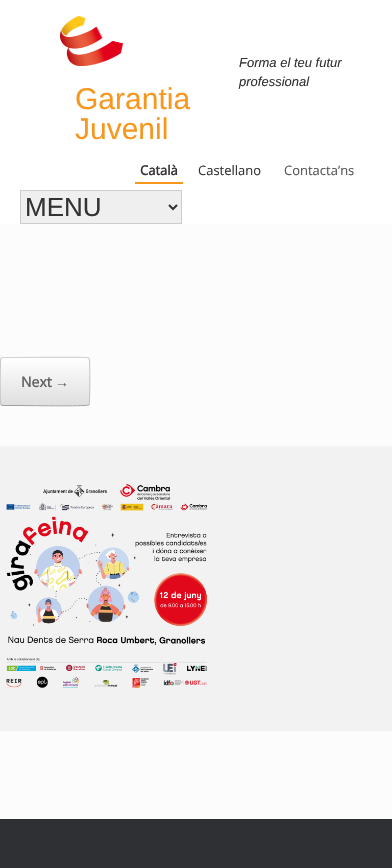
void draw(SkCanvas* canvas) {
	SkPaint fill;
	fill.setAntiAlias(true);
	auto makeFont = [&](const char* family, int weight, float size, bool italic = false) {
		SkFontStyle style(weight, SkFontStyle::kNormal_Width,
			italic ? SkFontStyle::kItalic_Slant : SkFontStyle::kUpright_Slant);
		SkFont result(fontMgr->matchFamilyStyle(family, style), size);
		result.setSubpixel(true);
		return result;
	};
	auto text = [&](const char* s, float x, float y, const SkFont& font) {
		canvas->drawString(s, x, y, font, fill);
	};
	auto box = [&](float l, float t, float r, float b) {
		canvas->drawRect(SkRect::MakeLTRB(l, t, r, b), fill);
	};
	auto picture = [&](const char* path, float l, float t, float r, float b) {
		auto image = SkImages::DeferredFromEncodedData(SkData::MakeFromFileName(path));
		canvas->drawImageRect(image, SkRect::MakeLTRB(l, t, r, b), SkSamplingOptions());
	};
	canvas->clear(0xFF2F3033);
	fill.setColor(0xFFFFFFFF);
	box(0, 0, 392, 224);
	picture("image0.png", 60, 16, 123, 66);
	fill.setColor(0xFFF7971D);
	box(135, 182, 183, 184);
	fill.setColor(0xFFEFEFEF);
	canvas->drawRect(SkRect::MakeLTRB(20.5f, 190.5f, 181.5f, 223.5f), fill);
	fill.setStyle(SkPaint::kStroke_Style);
	fill.setStrokeWidth(1);
	fill.setColor(0xFFCCCCCC);
	canvas->drawRect(SkRect::MakeLTRB(20.5f, 190.5f, 181.5f, 223.5f), fill);
	fill.setStrokeWidth(2);
	fill.setColor(0xFF333333);
	canvas->drawPath(SkPathBuilder().moveTo(169, 205).lineTo(173, 209).lineTo(177, 205).detach(), fill);
	fill.setStyle(SkPaint::kFill_Style);
	fill.setColor(0xFFFCFCFC);
	box(0, 224, 392, 819);
	canvas->save();
	canvas->clipPath(SkPathBuilder().moveTo(3, 357).lineTo(87, 357).cubicTo(88.5f, 357, 90, 358.5f, 90, 360).lineTo(90, 403).cubicTo(90, 404.5f, 88.5f, 406, 87, 406).lineTo(3, 406).cubicTo(1.5f, 406, 0, 404.5f, 0, 403).lineTo(0, 360).cubicTo(0, 358.5f, 1.5f, 357, 3, 357).close().detach(), true);
	{
		const SkColor colors[] = {0xFFDFDFDF, 0xFFFFFFFF};
		const float stops[] = {0, 1};
		const SkPoint ends[] = {{1, 358}, {1, 311}};
		fill.setShader(SkGradientShader::MakeLinear(ends, colors, stops, 2, SkTileMode::kClamp));
		fill.setAlpha(255);
	}
	box(0, 357, 90, 358);
	{
		const SkColor colors[] = {0xFFDFDFDF, 0xFFFFFFFF};
		const float stops[] = {0, 1};
		const SkPoint ends[] = {{1, 405}, {1, 358}};
		fill.setShader(SkGradientShader::MakeLinear(ends, colors, stops, 2, SkTileMode::kClamp));
		fill.setAlpha(255);
	}
	box(0, 358, 90, 405);
	{
		const SkColor colors[] = {0xFFDFDFDF, 0xFFFFFFFF};
		const float stops[] = {0, 1};
		const SkPoint ends[] = {{1, 452}, {1, 405}};
		fill.setShader(SkGradientShader::MakeLinear(ends, colors, stops, 2, SkTileMode::kClamp));
		fill.setAlpha(255);
	}
	box(0, 405, 90, 406);
	canvas->restore();
	fill.setStyle(SkPaint::kStroke_Style);
	fill.setStrokeWidth(1);
	fill.setShader(nullptr);
	fill.setColor(0xFFD2D2D2);
	canvas->drawPath(SkPathBuilder().moveTo(1, 358).lineTo(3, 357.5f).lineTo(17, 357.5f).cubicTo(24.5f, 357.5f, 86.5f, 356.5f, 88.5f, 358).lineTo(89, 358).detach(), fill);
	fill.setColor(0xFFC3C3C3);
	canvas->drawPath(SkPathBuilder().moveTo(89, 358).lineTo(89.5f, 360).cubicTo(90, 364, 90, 403.5f, 89, 405).detach(), fill);
	fill.setColor(0xFF9F9F9F);
	canvas->drawPath(SkPathBuilder().moveTo(89, 405).lineTo(88.5f, 405).cubicTo(86.5f, 406.5f, 24.5f, 405.5f, 17, 405.5f).lineTo(3, 405.5f).lineTo(1, 405).detach(), fill);
	fill.setColor(0xFFC3C3C3);
	canvas->drawPath(SkPathBuilder().moveTo(1, 405).lineTo(0.5f, 403).cubicTo(0, 399, 0, 359.5f, 1, 358).detach(), fill);
	picture("image1.png", 0, 446, 392, 731);
	auto font1 = makeFont("Liberation Sans", 400, 13, true);
	fill.setStyle(SkPaint::kFill_Style);
	fill.setColor(0xFF333333);
	text("Forma el teu futur", 239, 67, font1);
	text("professional", 239, 86, font1);
	auto font2 = makeFont("Liberation Sans", 400, 30);
	fill.setColor(0xFFF7971D);
	text("Garantia", 75, 109, font2);
	text("Juvenil", 75, 139, font2);
	auto font3 = makeFont("Open Sans", 700, 13);
	fill.setColor(0xFF333333);
	text("Català", 140, 175, font3);
	auto font4 = makeFont("Open Sans", 400, 13);
	text("Castellano", 198, 175, font4);
	fill.setColor(0xFF555555);
	text("Contacta’ns", 284, 175, font4);
	auto font5 = makeFont("Liberation Sans", 400, 26);
	fill.setColor(0xFF333333);
	text("MENU", 25, 216, font5);
	auto font6 = makeFont("Open Sans", 700, 14);
	fill.setColor(0xFF646464);
	text("Next", 21, 387, font6);
	auto font7 = makeFont("Liberation Sans", 700, 14);
	text("→", 55, 387, font7);
}
